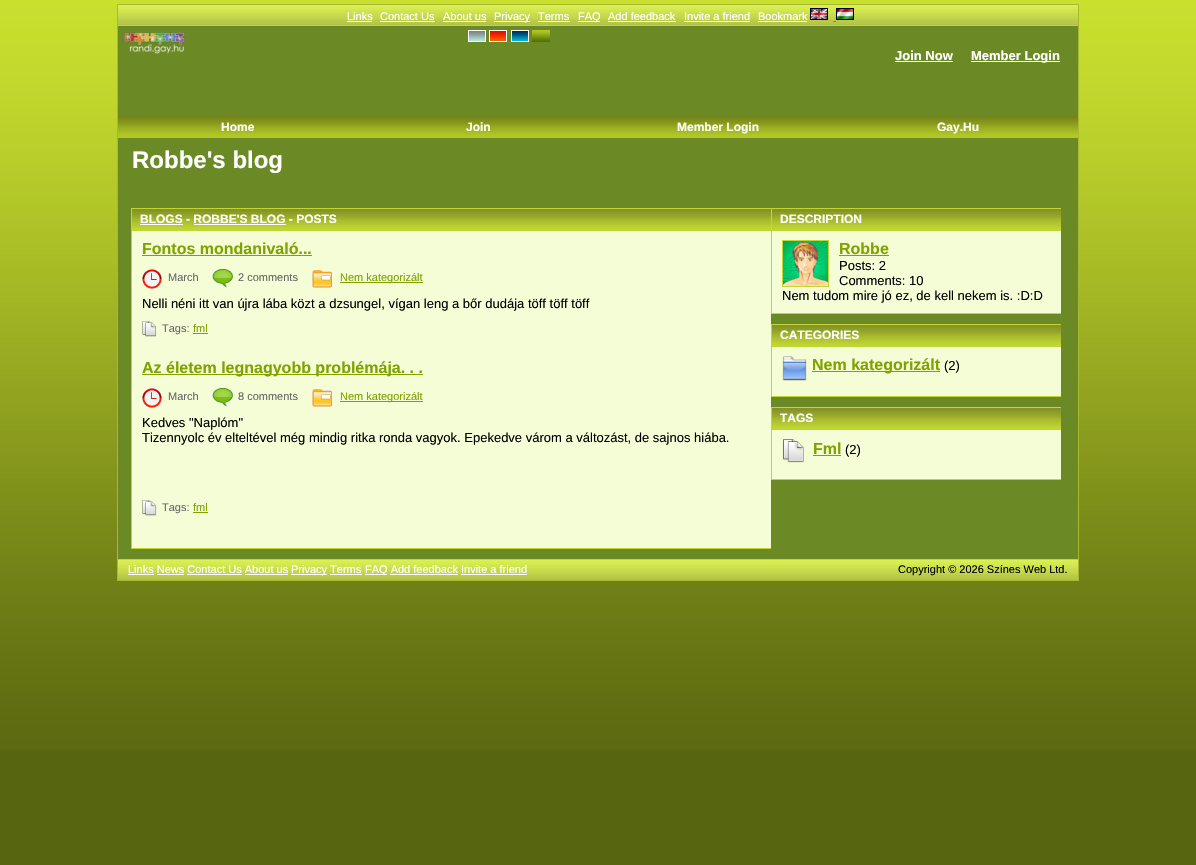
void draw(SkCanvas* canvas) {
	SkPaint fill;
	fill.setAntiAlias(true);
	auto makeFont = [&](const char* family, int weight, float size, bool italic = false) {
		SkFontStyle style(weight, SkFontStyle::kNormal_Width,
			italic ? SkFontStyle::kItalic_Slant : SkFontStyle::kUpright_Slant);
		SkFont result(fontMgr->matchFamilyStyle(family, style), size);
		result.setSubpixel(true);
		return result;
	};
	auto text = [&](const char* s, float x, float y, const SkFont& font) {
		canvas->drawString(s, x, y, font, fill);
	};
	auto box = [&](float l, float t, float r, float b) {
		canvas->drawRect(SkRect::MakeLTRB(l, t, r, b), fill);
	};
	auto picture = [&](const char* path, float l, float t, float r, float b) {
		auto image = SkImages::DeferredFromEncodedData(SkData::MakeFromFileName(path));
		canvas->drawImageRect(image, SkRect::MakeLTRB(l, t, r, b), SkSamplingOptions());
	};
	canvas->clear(0xFF58650F);
	picture("image0.png", 0, 0, 1196, 750);
	fill.setColor(0xFF6B8A25);
	box(118, 26, 1078, 559);
	fill.setStyle(SkPaint::kStroke_Style);
	fill.setStrokeWidth(1);
	fill.setColor(0xFFA7B92E);
	canvas->drawRect(SkRect::MakeLTRB(117.5f, 4.5f, 1078.5f, 580.5f), fill);
	picture("image1.png", 118, 5, 1078, 25);
	fill.setStyle(SkPaint::kFill_Style);
	fill.setColor(0xFFC1D633);
	box(118, 25, 1078, 26);
	fill.setColor(0xFFFFFFFF);
	box(347, 21, 372, 22);
	box(380, 21, 435, 22);
	box(443, 21, 486, 22);
	box(494, 21, 530, 22);
	box(538, 21, 570, 22);
	box(578, 21, 600, 22);
	box(608, 21, 676, 22);
	box(684, 21, 750, 22);
	box(758, 21, 807, 22);
	picture("image2.png", 810, 8, 828, 20);
	picture("image3.png", 836, 8, 854, 20);
	fill.setColor(0xFF80A200);
	box(833, 21, 836, 22);
	picture("image4.png", 123, 32, 185, 54);
	picture("image5.png", 468, 30, 486, 42);
	picture("image6.png", 489, 30, 507, 42);
	picture("image7.png", 511, 30, 529, 42);
	picture("image8.png", 532, 30, 550, 42);
	fill.setColor(0xFFFFFFFF);
	box(895, 61, 953, 62);
	box(971, 61, 1060, 62);
	picture("image9.png", 118, 116, 358, 138);
	picture("image9.png", 358, 116, 598, 138);
	picture("image9.png", 598, 116, 838, 138);
	picture("image9.png", 838, 116, 1078, 138);
	fill.setColor(0xFFF5FDD7);
	box(132, 231, 771, 548);
	picture("image10.png", 132, 209, 771, 231);
	canvas->save();
	canvas->clipRect(SkRect::MakeLTRB(131, 208, 771, 559));
	fill.setStyle(SkPaint::kStroke_Style);
	fill.setColor(0xFFC1D633);
	canvas->drawRect(SkRect::MakeLTRB(131.5f, 208.5f, 772.5f, 548.5f), fill);
	canvas->restore();
	fill.setStyle(SkPaint::kFill_Style);
	fill.setColor(0xFFFFFFFF);
	box(140, 224, 183, 225);
	box(194, 224, 286, 225);
	fill.setColor(0xFF80A200);
	box(142, 255, 312, 256);
	picture("image11.png", 142, 269, 162, 289);
	picture("image12.png", 212, 269, 233, 288);
	picture("image13.png", 312, 270, 332, 288);
	box(340, 282, 423, 283);
	picture("image14.png", 142, 321, 157, 337);
	box(193, 333, 208, 334);
	box(142, 374, 423, 375);
	picture("image11.png", 142, 388, 162, 408);
	picture("image12.png", 212, 388, 233, 407);
	picture("image13.png", 312, 389, 332, 407);
	box(340, 401, 423, 402);
	picture("image14.png", 142, 500, 157, 516);
	box(193, 512, 208, 513);
	fill.setColor(0xFFF5FDD7);
	box(772, 231, 1061, 313);
	picture("image15.png", 772, 209, 1061, 231);
	canvas->save();
	canvas->clipRect(SkRect::MakeLTRB(771, 208, 1061, 490));
	fill.setStyle(SkPaint::kStroke_Style);
	fill.setColor(0xFFC1D633);
	canvas->drawRect(SkRect::MakeLTRB(771.5f, 208.5f, 1062.5f, 313.5f), fill);
	canvas->restore();
	picture("image16.png", 783, 241, 828, 286);
	canvas->drawRect(SkRect::MakeLTRB(782.5f, 240.5f, 828.5f, 286.5f), fill);
	fill.setStyle(SkPaint::kFill_Style);
	fill.setColor(0xFF80A200);
	box(839, 255, 889, 256);
	fill.setColor(0xFFF5FDD7);
	box(772, 347, 1061, 396);
	picture("image15.png", 772, 325, 1061, 347);
	canvas->save();
	canvas->clipRect(SkRect::MakeLTRB(771, 208, 1061, 490));
	fill.setStyle(SkPaint::kStroke_Style);
	fill.setColor(0xFFC1D633);
	canvas->drawRect(SkRect::MakeLTRB(771.5f, 324.5f, 1062.5f, 396.5f), fill);
	canvas->restore();
	picture("image17.png", 782, 356, 807, 381);
	fill.setStyle(SkPaint::kFill_Style);
	fill.setColor(0xFF80A200);
	box(812, 371, 940, 372);
	fill.setColor(0xFFF5FDD7);
	box(772, 430, 1061, 479);
	picture("image15.png", 772, 408, 1061, 430);
	canvas->save();
	canvas->clipRect(SkRect::MakeLTRB(771, 208, 1061, 490));
	fill.setStyle(SkPaint::kStroke_Style);
	fill.setColor(0xFFC1D633);
	canvas->drawRect(SkRect::MakeLTRB(771.5f, 407.5f, 1062.5f, 479.5f), fill);
	canvas->restore();
	picture("image18.png", 782, 439, 804, 463);
	fill.setStyle(SkPaint::kFill_Style);
	fill.setColor(0xFF80A200);
	box(813, 455, 841, 456);
	picture("image19.png", 118, 559, 1078, 580);
	fill.setColor(0xFFFFFFFF);
	box(128, 574, 154, 575);
	box(291, 574, 327, 575);
	box(365, 574, 387, 575);
	box(157, 574, 184, 575);
	box(187, 574, 242, 575);
	box(245, 574, 288, 575);
	box(330, 574, 362, 575);
	box(390, 574, 458, 575);
	box(461, 574, 527, 575);
	auto font1 = makeFont("Liberation Sans", 400, 11);
	text("Links", 347, 20, font1);
	text("Contact Us", 380, 20, font1);
	text("About us", 443, 20, font1);
	text("Privacy", 494, 20, font1);
	text("Terms", 538, 20, font1);
	text("FAQ", 578, 20, font1);
	text("Add feedback", 608, 20, font1);
	text("Invite a friend", 684, 20, font1);
	text("Bookmark", 758, 20, font1);
	auto font2 = makeFont("Liberation Sans", 700, 13);
	text("Join Now", 895, 60, font2);
	text("Member Login", 971, 60, font2);
	auto font3 = makeFont("Liberation Sans", 700, 12);
	text("Home", 221, 131, font3);
	text("Join", 466, 131, font3);
	text("Member Login", 677, 131, font3);
	text("Gay.Hu", 937, 131, font3);
	auto font4 = makeFont("Liberation Sans", 700, 24);
	text("Robbe's blog", 132, 168, font4);
	text("BLOGS - ROBBE'S BLOG - POSTS", 140, 223, font3);
	auto font5 = makeFont("Liberation Sans", 700, 16);
	fill.setColor(0xFF80A200);
	text("Fontos mondanivaló...", 142, 254, font5);
	fill.setColor(0xFF666666);
	text("March", 168, 281, font1);
	text("2 comments", 238, 281, font1);
	fill.setColor(0xFF80A200);
	text("Nem kategorizált", 340, 281, font1);
	auto font6 = makeFont("Liberation Sans", 400, 13);
	fill.setColor(0xFF000000);
	text("Nelli néni itt van újra lába közt a dzsungel, vígan leng a bőr dudája töff töff töff", 142, 308, font6);
	fill.setColor(0xFF666666);
	text("Tags:", 162, 332, font1);
	fill.setColor(0xFF80A200);
	text("fml", 193, 332, font1);
	text("Az életem legnagyobb problémája. . .", 142, 373, font5);
	fill.setColor(0xFF666666);
	text("March", 168, 400, font1);
	text("8 comments", 238, 400, font1);
	fill.setColor(0xFF80A200);
	text("Nem kategorizált", 340, 400, font1);
	fill.setColor(0xFF000000);
	text("Kedves \"Naplóm\"", 142, 427, font6);
	text("Tizennyolc év elteltével még mindig ritka ronda vagyok. Epekedve várom a változást, de sajnos hiába.", 142, 442, font6);
	fill.setColor(0xFF666666);
	text("Tags:", 162, 511, font1);
	fill.setColor(0xFF80A200);
	text("fml", 193, 511, font1);
	fill.setColor(0xFFFFFFFF);
	text("DESCRIPTION", 780, 223, font3);
	fill.setColor(0xFF80A200);
	text("Robbe", 839, 254, font5);
	fill.setColor(0xFF000000);
	text("Posts: 2", 839, 270, font6);
	text("Comments: 10", 839, 285, font6);
	text("Nem tudom mire jó ez, de kell nekem is. :D:D", 782, 300, font6);
	fill.setColor(0xFFFFFFFF);
	text("CATEGORIES", 780, 339, font3);
	fill.setColor(0xFF80A200);
	text("Nem kategorizált", 812, 370, font5);
	fill.setColor(0xFF000000);
	text("(2)", 944, 370, font6);
	fill.setColor(0xFFFFFFFF);
	text("TAGS", 780, 422, font3);
	fill.setColor(0xFF80A200);
	text("Fml", 813, 454, font5);
	fill.setColor(0xFF000000);
	text("(2)", 845, 454, font6);
	fill.setColor(0xFFFFFFFF);
	text("Links News Contact Us About us", 128, 573, font1);
	text("Privacy Terms", 291, 573, font1);
	text("FAQ Add feedback Invite a friend", 365, 573, font1);
	fill.setColor(0xFF000000);
	text("Copyright © 2026 Színes Web Ltd.", 898, 573, font1);
}
